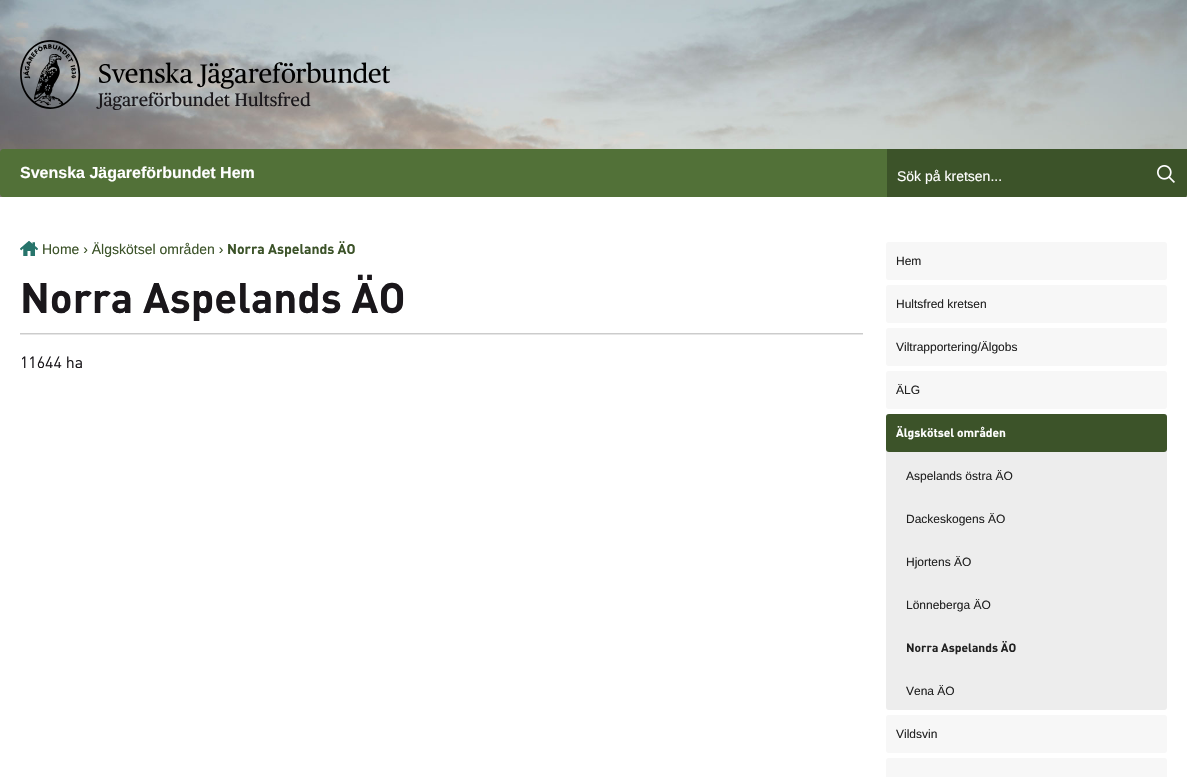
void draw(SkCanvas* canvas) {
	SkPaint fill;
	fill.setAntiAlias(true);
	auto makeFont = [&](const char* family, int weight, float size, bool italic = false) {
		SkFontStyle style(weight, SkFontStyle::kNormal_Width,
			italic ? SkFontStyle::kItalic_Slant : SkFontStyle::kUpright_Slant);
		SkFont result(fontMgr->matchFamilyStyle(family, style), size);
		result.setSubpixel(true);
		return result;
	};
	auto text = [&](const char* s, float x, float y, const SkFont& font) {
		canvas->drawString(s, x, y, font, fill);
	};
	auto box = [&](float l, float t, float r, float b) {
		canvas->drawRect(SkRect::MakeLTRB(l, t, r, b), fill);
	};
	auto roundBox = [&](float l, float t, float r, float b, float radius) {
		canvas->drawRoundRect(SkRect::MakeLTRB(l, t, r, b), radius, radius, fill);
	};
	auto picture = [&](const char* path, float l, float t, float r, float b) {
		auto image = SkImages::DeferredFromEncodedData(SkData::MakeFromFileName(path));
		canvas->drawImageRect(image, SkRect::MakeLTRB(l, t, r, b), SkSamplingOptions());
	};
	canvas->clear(0xFFFFFFFF);
	picture("image0.png", 0, 0, 1187, 197);
	picture("image1.png", 20, 40, 390, 109);
	fill.setColor(0xFF527138);
	canvas->drawPath(SkPathBuilder().moveTo(3, 149).lineTo(887, 149).lineTo(887, 197).lineTo(3, 197).cubicTo(1.5f, 197, 0, 195.5f, 0, 194).lineTo(0, 152).cubicTo(0, 150.5f, 1.5f, 149, 3, 149).close().detach(), fill);
	fill.setColor(0xFF3C5329);
	canvas->drawPath(SkPathBuilder().moveTo(887, 149).lineTo(1187, 149).lineTo(1187, 195).cubicTo(1187, 197, 1185, 199, 1183, 199).lineTo(887, 199).close().detach(), fill);
	picture("image2.png", 1157, 165, 1175, 183);
	fill.setColor(0xFFFFFFFF);
	box(887, 197, 1187, 199);
	picture("image3.png", 20, 241, 38, 256);
	fill.setColor(0xFFE6E6E6);
	box(20, 334, 863, 335);
	fill.setColor(0xFFCCCCCC);
	box(20, 333, 863, 334);
	fill.setColor(0xFFF7F7F7);
	roundBox(886, 242, 1167, 280, 3);
	roundBox(886, 285, 1167, 323, 3);
	roundBox(886, 328, 1167, 366, 3);
	roundBox(886, 371, 1167, 409, 3);
	fill.setColor(0xFFEDEDED);
	roundBox(886, 414, 1167, 710, 3);
	fill.setColor(0xFF3C5329);
	roundBox(886, 414, 1167, 452, 3);
	fill.setColor(0xFFF7F7F7);
	roundBox(886, 715, 1167, 753, 3);
	roundBox(886, 758, 1167, 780, 3);
	auto font1 = makeFont("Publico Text", 400, 18);
	fill.setColor(0xFF1A171B);
	text("Jägareförbundet Hultsfred", 98, 106, font1);
	auto font2 = makeFont("Liberation Sans", 700, 16);
	fill.setColor(0xFFFFFFFF);
	text("Svenska Jägareförbundet Hem", 20, 178, font2);
	auto font3 = makeFont("Liberation Sans", 400, 14);
	text("Sök på kretsen...", 897, 181, font3);
	fill.setColor(0xFF3C5329);
	text("Home › Älgskötsel områden ›", 42, 254, font3);
	auto font4 = makeFont("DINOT", 700, 14);
	text("Norra Aspelands ÄO", 227, 254, font4);
	auto font5 = makeFont("DINOT", 700, 42);
	fill.setColor(0xFF1A171B);
	text("Norra Aspelands ÄO", 20, 313, font5);
	auto font6 = makeFont("DINOT", 400, 16);
	text("11644 ha", 20, 368, font6);
	auto font7 = makeFont("Liberation Sans", 400, 12);
	fill.setColor(0xFF222222);
	text("Hem", 896, 265, font7);
	text("Hultsfred kretsen", 896, 308, font7);
	text("Viltrapportering/Älgobs", 896, 351, font7);
	text("ÄLG", 896, 394, font7);
	auto font8 = makeFont("DINOT", 700, 12);
	fill.setColor(0xFFFFFFFF);
	text("Älgskötsel områden", 896, 437, font8);
	fill.setColor(0xFF222222);
	text("Aspelands östra ÄO", 906, 480, font7);
	text("Dackeskogens ÄO", 906, 523, font7);
	text("Hjortens ÄO", 906, 566, font7);
	text("Lönneberga ÄO", 906, 609, font7);
	text("Norra Aspelands ÄO", 906, 652, font8);
	text("Vena ÄO", 906, 695, font7);
	text("Vildsvin", 896, 738, font7);
}
